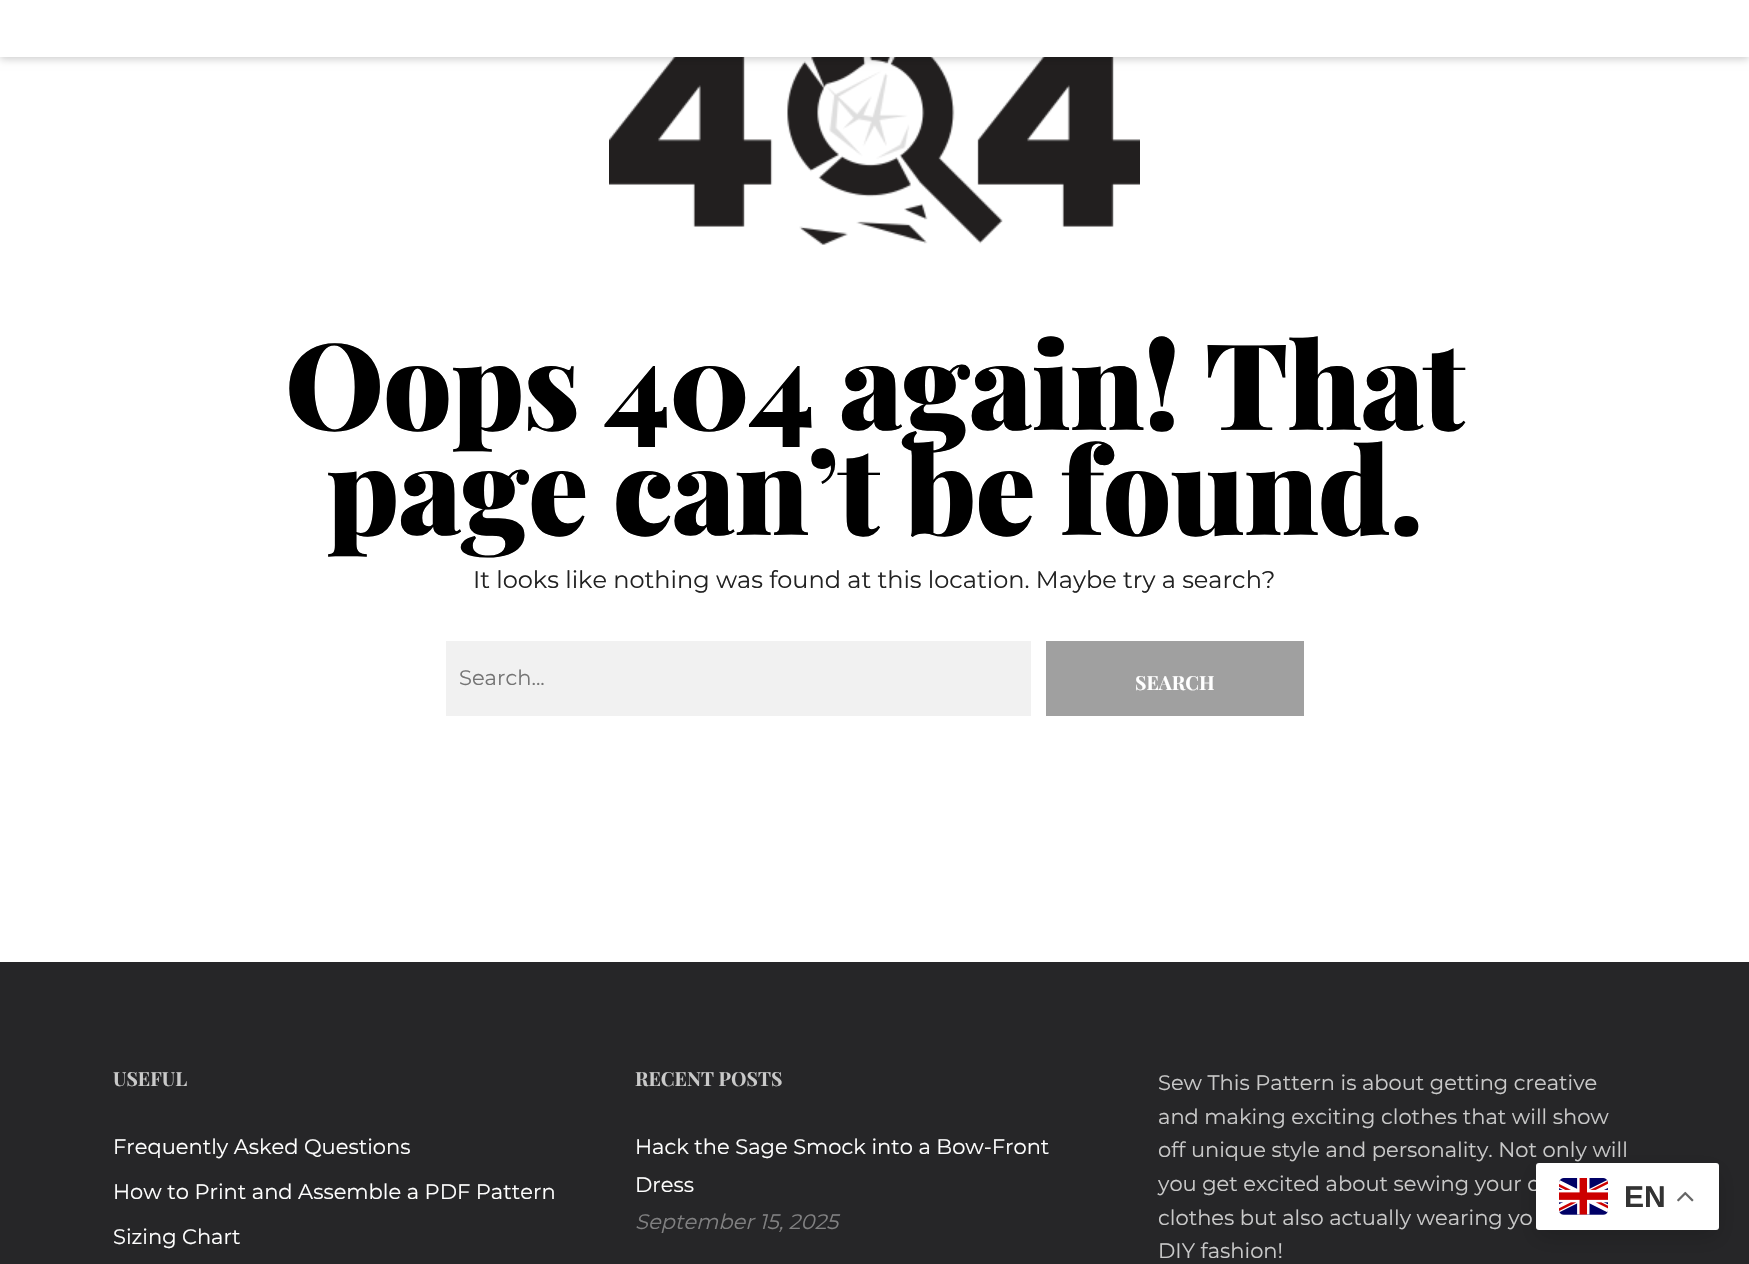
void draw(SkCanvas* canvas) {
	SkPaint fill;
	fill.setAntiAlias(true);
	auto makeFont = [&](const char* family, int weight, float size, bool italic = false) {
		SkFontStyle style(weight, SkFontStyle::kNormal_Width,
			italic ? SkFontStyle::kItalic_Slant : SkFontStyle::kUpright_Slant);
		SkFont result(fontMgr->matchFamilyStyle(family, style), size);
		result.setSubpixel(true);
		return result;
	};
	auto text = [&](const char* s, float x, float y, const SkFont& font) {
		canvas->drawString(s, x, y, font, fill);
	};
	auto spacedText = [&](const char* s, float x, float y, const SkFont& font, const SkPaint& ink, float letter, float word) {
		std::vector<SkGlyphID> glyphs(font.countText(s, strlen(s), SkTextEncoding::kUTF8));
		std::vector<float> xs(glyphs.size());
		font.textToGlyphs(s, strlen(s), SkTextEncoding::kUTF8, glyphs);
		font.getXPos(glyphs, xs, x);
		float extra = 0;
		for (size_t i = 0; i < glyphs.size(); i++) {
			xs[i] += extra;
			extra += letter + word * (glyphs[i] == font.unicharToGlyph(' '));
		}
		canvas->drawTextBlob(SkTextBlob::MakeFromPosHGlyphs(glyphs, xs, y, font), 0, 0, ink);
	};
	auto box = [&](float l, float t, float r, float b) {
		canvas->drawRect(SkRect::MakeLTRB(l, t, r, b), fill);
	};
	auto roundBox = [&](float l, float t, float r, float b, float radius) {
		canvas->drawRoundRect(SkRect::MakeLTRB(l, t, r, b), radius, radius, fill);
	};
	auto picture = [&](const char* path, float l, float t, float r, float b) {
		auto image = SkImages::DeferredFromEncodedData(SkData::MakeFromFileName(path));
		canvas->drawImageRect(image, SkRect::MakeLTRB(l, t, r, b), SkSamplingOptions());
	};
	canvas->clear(0xFFFFFFFF);
	picture("image0.png", 609, 57, 1140, 245);
	fill.setColor(0x33000000);
	fill.setMaskFilter(SkMaskFilter::MakeBlur(kNormal_SkBlurStyle, 4));
	canvas->drawRect(SkRect::MakeLTRB(0, -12, 1749, 59), fill);
	fill.setMaskFilter(nullptr);
	fill.setColor(0xFFFFFFFF);
	box(0, 0, 1749, 57);
	fill.setColor(0xFFF1F1F1);
	box(446, 641, 1031, 716);
	fill.setColor(0xFFA0A0A0);
	box(1046, 641, 1304, 716);
	fill.setColor(0xFF262628);
	box(0, 962, 1749, 1264);
	fill.setColor(0x26000000);
	fill.setMaskFilter(SkMaskFilter::MakeBlur(kNormal_SkBlurStyle, 11));
	canvas->drawRoundRect(SkRect::MakeLTRB(1536, 1170, 1719, 1238), 3, 3, fill);
	fill.setMaskFilter(nullptr);
	auto font1 = makeFont("Playfair Display", 900, 120);
	fill.setColor(0xFF000000);
	spacedText("Oops 404 again! That", 285, 430, font1, fill, -1.2f, 0);
	spacedText("page can’t be found.", 326, 535, font1, fill, -1.2f, 0);
	auto font2 = makeFont("Montserrat", 400, 24);
	fill.setColor(0xFF222222);
	text("It looks like nothing was found at this location. Maybe try a search?", 473, 588, font2);
	auto font3 = makeFont("Montserrat", 400, 21);
	fill.setColor(0xFF757575);
	text("Search...", 459, 685, font3);
	auto font4 = makeFont("Playfair Display", 700, 19.5f);
	fill.setColor(0xFFFFFFFF);
	text("SEARCH", 1135, 690, font4);
	fill.setColor(0xFFC9C9C9);
	text("USEFUL", 113, 1086, font4);
	fill.setColor(0xFFFFFFFF);
	text("Frequently Asked Questions", 113, 1154, font3);
	text("How to Print and Assemble a PDF Pattern", 113, 1199, font3);
	text("Sizing Chart", 113, 1244, font3);
	fill.setColor(0xFFC9C9C9);
	text("RECENT POSTS", 635, 1086, font4);
	fill.setColor(0xFFFFFFFF);
	text("Hack the Sage Smock into a Bow-Front", 635, 1154, font3);
	text("Dress", 635, 1192, font3);
	auto font5 = makeFont("Montserrat", 400, 21, true);
	fill.setColor(0xFF808081);
	text("September 15, 2025", 635, 1229, font5);
	fill.setColor(0xFFC9C9C9);
	text("Sew This Pattern is about getting creative", 1158, 1090, font3);
	text("and making exciting clothes that will show", 1158, 1124, font3);
	text("off unique style and personality. Not only will", 1158, 1157, font3);
	text("you get excited about sewing your o", 1158, 1191, font3);
	text("clothes but also actually wearing yo", 1158, 1225, font3);
	text("DIY fashion!", 1158, 1258, font3);
	fill.setColor(0xFFFFFFFF);
	roundBox(1536, 1163, 1719, 1230, 3);
	picture("image1.png", 1559, 1178, 1608, 1215);
	auto font6 = makeFont("Liberation Sans", 700, 30);
	fill.setColor(0xFF333333);
	text("EN", 1624, 1207, font6);
	picture("image2.png", 1677, 1191, 1694, 1202);
}
